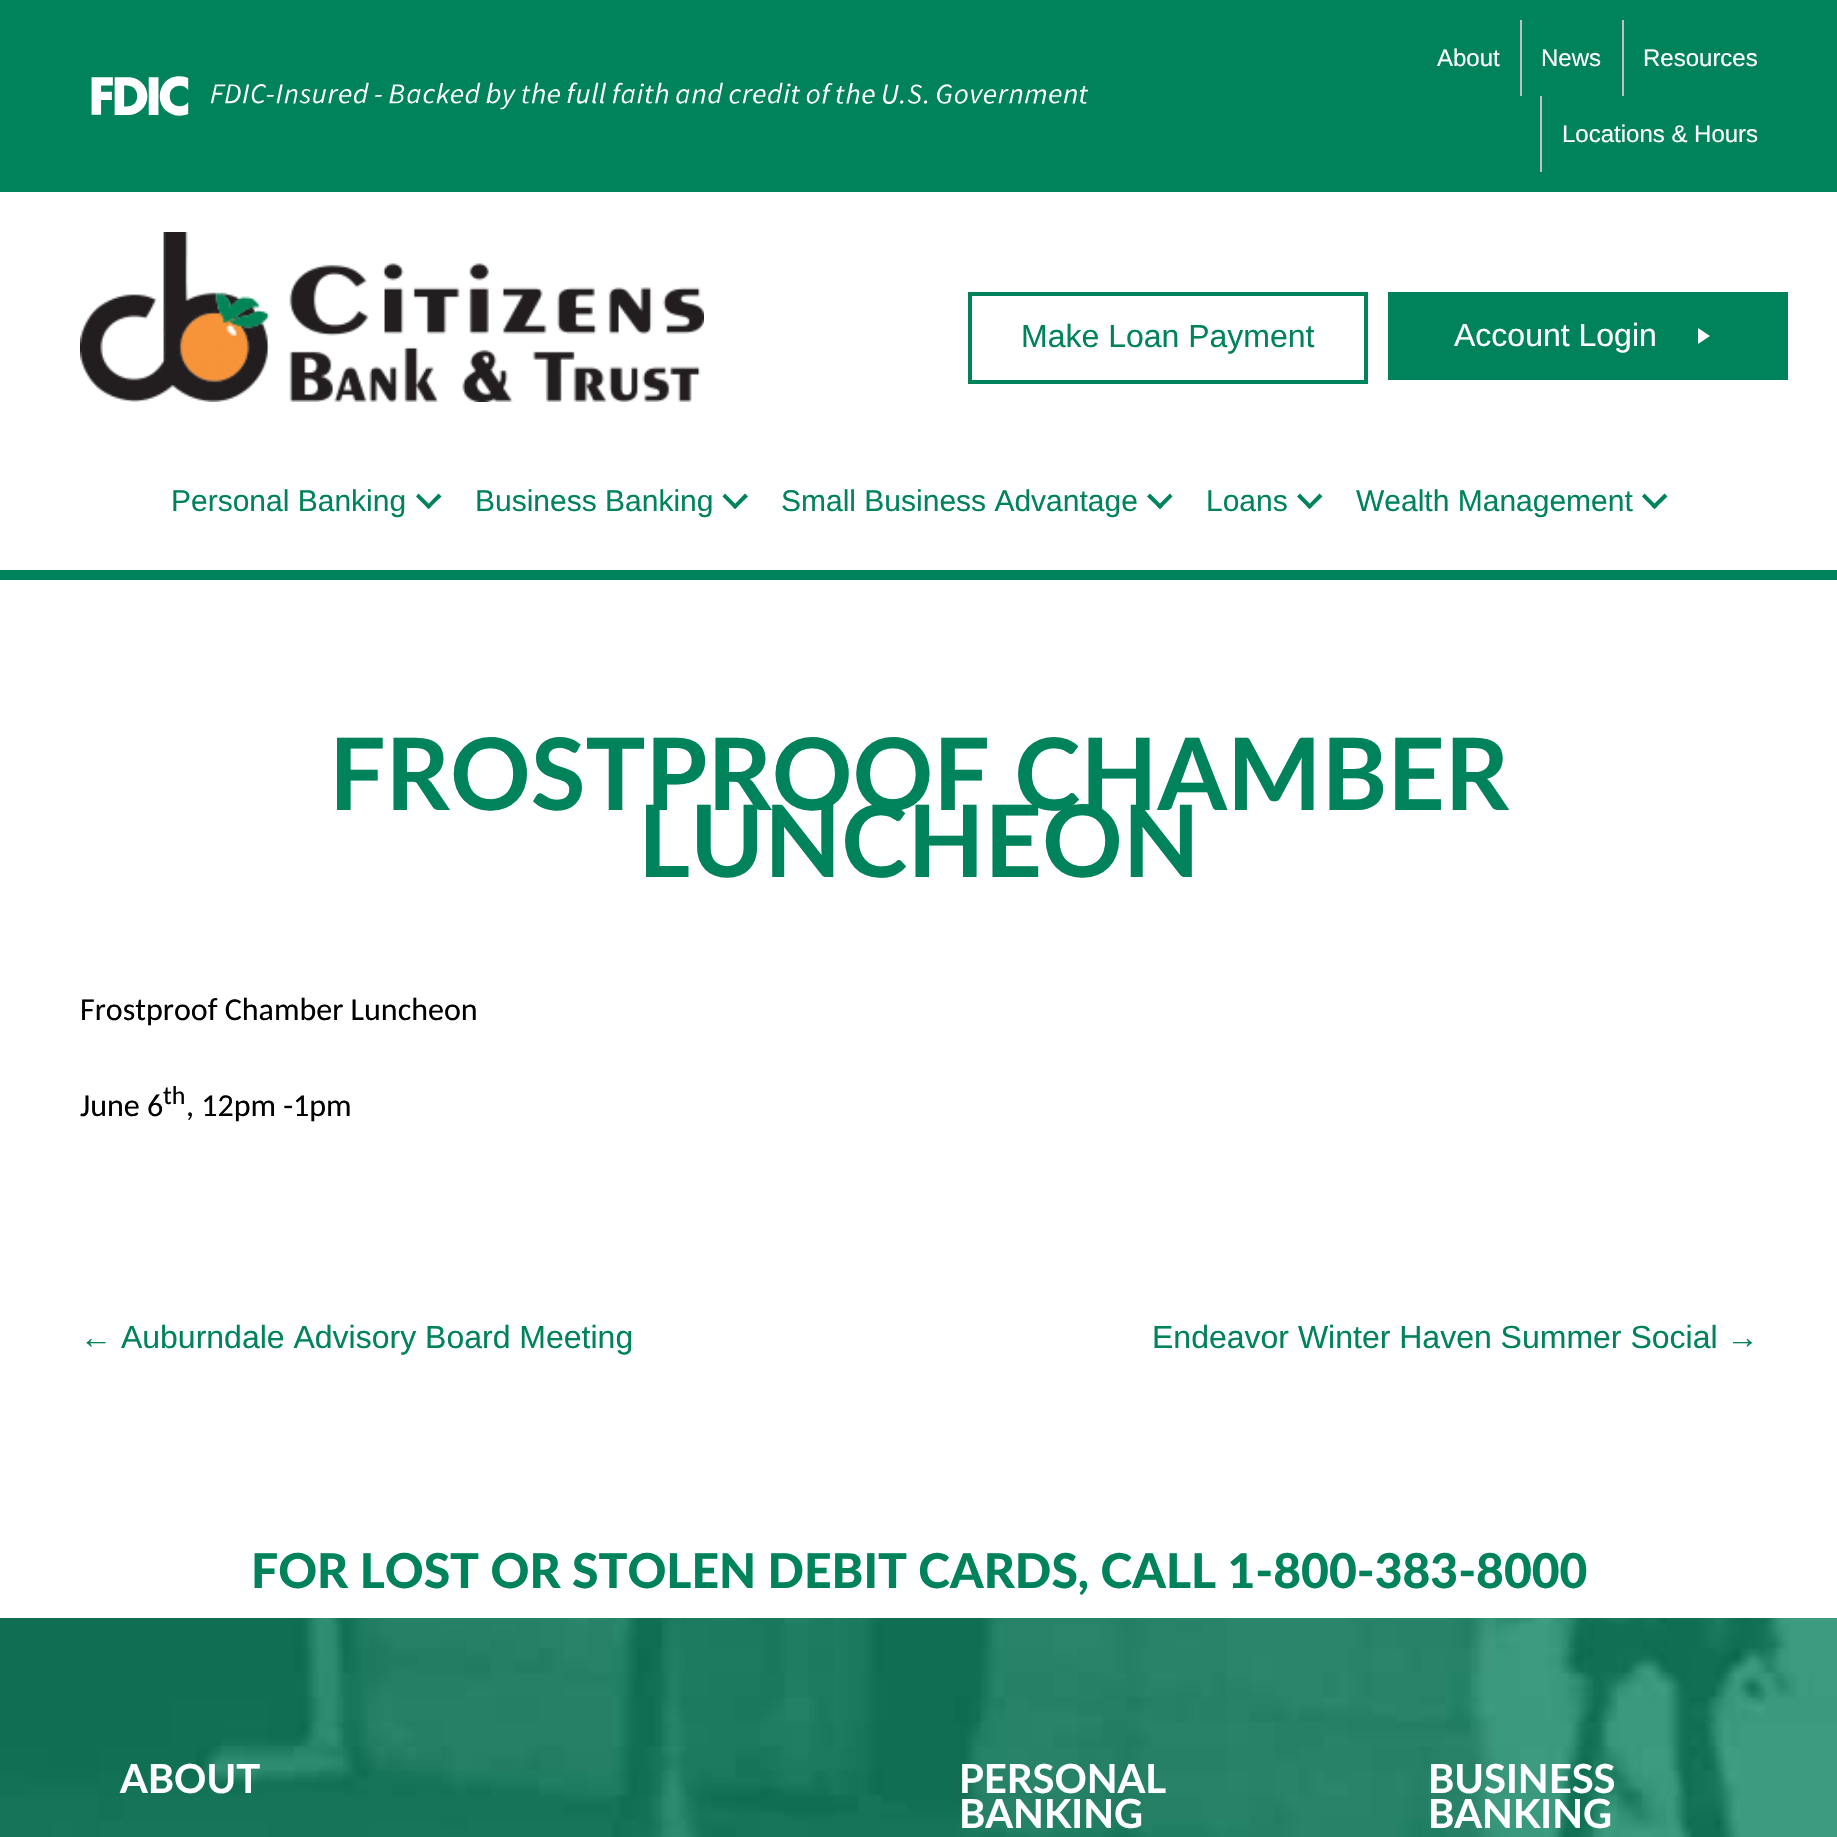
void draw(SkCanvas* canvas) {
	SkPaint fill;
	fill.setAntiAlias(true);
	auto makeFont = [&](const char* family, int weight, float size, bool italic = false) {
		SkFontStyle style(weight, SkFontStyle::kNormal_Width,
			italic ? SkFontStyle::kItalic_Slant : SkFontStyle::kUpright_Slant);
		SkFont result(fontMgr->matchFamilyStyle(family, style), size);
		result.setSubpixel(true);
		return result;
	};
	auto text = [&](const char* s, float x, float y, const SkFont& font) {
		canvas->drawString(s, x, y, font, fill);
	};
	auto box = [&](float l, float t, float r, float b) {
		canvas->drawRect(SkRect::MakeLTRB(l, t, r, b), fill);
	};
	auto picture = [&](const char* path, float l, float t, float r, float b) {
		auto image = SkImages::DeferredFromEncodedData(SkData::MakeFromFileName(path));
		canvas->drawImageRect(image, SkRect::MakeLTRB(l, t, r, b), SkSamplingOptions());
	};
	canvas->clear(0xFFFFFFFF);
	fill.setColor(0xFF00825B);
	box(0, 0, 1837, 192);
	picture("image0.png", 91, 76, 1088, 116);
	fill.setColor(0xFFC1C1C1);
	box(1520, 20, 1522, 96);
	box(1622, 20, 1624, 96);
	box(1540, 96, 1542, 172);
	fill.setColor(0xFF00825B);
	box(0, 570, 1837, 580);
	picture("image1.png", 80, 232, 704, 402);
	fill.setStyle(SkPaint::kStroke_Style);
	fill.setStrokeWidth(4);
	canvas->drawRect(SkRect::MakeLTRB(970, 294, 1366, 382), fill);
	fill.setStyle(SkPaint::kFill_Style);
	box(1388, 292, 1788, 380);
	fill.setColor(0xFFFFFFFF);
	canvas->drawPath(SkPathBuilder().moveTo(1698, 328).lineTo(1710, 336).lineTo(1698, 344).close().detach(), fill);
	fill.setColor(0xFF00825B);
	canvas->drawPath(SkPathBuilder().moveTo(438.5f, 493.5f).lineTo(441.5f, 496.5f).lineTo(428.5f, 509).lineTo(426, 506.5f).close().detach(), fill);
	canvas->drawPath(SkPathBuilder().moveTo(418.5f, 493.5f).lineTo(431.5f, 506.5f).lineTo(428.5f, 509).lineTo(416, 496.5f).close().detach(), fill);
	canvas->drawPath(SkPathBuilder().moveTo(745, 493.5f).lineTo(748, 496.5f).lineTo(735, 509).lineTo(732.5f, 506.5f).close().detach(), fill);
	canvas->drawPath(SkPathBuilder().moveTo(725, 493.5f).lineTo(738, 506.5f).lineTo(735, 509).lineTo(722.5f, 496.5f).close().detach(), fill);
	canvas->drawPath(SkPathBuilder().moveTo(1170, 493.5f).lineTo(1172.5f, 496.5f).lineTo(1160, 509).lineTo(1157, 506.5f).close().detach(), fill);
	canvas->drawPath(SkPathBuilder().moveTo(1150, 493.5f).lineTo(1163, 506.5f).lineTo(1160, 509).lineTo(1147, 496.5f).close().detach(), fill);
	canvas->drawPath(SkPathBuilder().moveTo(1319.5f, 493.5f).lineTo(1322.5f, 496.5f).lineTo(1309.5f, 509).lineTo(1307, 506.5f).close().detach(), fill);
	canvas->drawPath(SkPathBuilder().moveTo(1300, 493.5f).lineTo(1312.5f, 506.5f).lineTo(1309.5f, 509).lineTo(1297, 496.5f).close().detach(), fill);
	canvas->drawPath(SkPathBuilder().moveTo(1664.5f, 493.5f).lineTo(1667.5f, 496.5f).lineTo(1654.5f, 509).lineTo(1651.5f, 506.5f).close().detach(), fill);
	canvas->drawPath(SkPathBuilder().moveTo(1644.5f, 493.5f).lineTo(1657.5f, 506.5f).lineTo(1654.5f, 509).lineTo(1642, 496.5f).close().detach(), fill);
	picture("image2.png", 0, 1618, 1837, 1837);
	auto font1 = makeFont("Liberation Sans", 400, 24);
	fill.setColor(0xFFFFFFFF);
	text("About", 1437, 66, font1);
	text("News", 1541, 66, font1);
	text("Resources", 1643, 66, font1);
	text("Locations & Hours", 1562, 142, font1);
	auto font2 = makeFont("Liberation Sans", 400, 32);
	fill.setColor(0xFF00825B);
	text("Make Loan Payment", 1021, 347, font2);
	fill.setColor(0xFFFFFFFF);
	text("Account Login", 1454, 346, font2);
	auto font3 = makeFont("Liberation Sans", 400, 30);
	fill.setColor(0xFF00825B);
	text("Personal Banking", 171, 511, font3);
	text("Business Banking", 475, 511, font3);
	text("Small Business Advantage", 781, 511, font3);
	text("Loans", 1206, 511, font3);
	text("Wealth Management", 1356, 511, font3);
	auto font4 = makeFont("Lato", 700, 100);
	text("FROSTPROOF CHAMBER", 329, 810, font4);
	text("LUNCHEON", 638, 877, font4);
	auto font5 = makeFont("Carlito", 400, 32);
	fill.setColor(0xFF000000);
	text("Frostproof Chamber Luncheon", 80, 1020, font5);
	text("June 6", 80, 1116, font5);
	auto font6 = makeFont("Carlito", 400, 26);
	text("th", 163, 1104, font6);
	text(", 12pm -1pm", 186, 1116, font5);
	fill.setColor(0xFF00825B);
	text("← Auburndale Advisory Board Meeting", 80, 1348, font2);
	text("Endeavor Winter Haven Summer Social →", 1152, 1348, font2);
	auto font7 = makeFont("Lato", 900, 48);
	text("FOR LOST OR STOLEN DEBIT CARDS, CALL 1-800-383-8000", 251, 1588, font7);
	auto font8 = makeFont("Lato", 700, 40);
	fill.setColor(0xFFFFFFFF);
	text("ABOUT", 120, 1793, font8);
	text("PERSONAL", 959, 1793, font8);
	text("BANKING", 959, 1828, font8);
	text("BUSINESS", 1428, 1793, font8);
	text("BANKING", 1428, 1828, font8);
}
